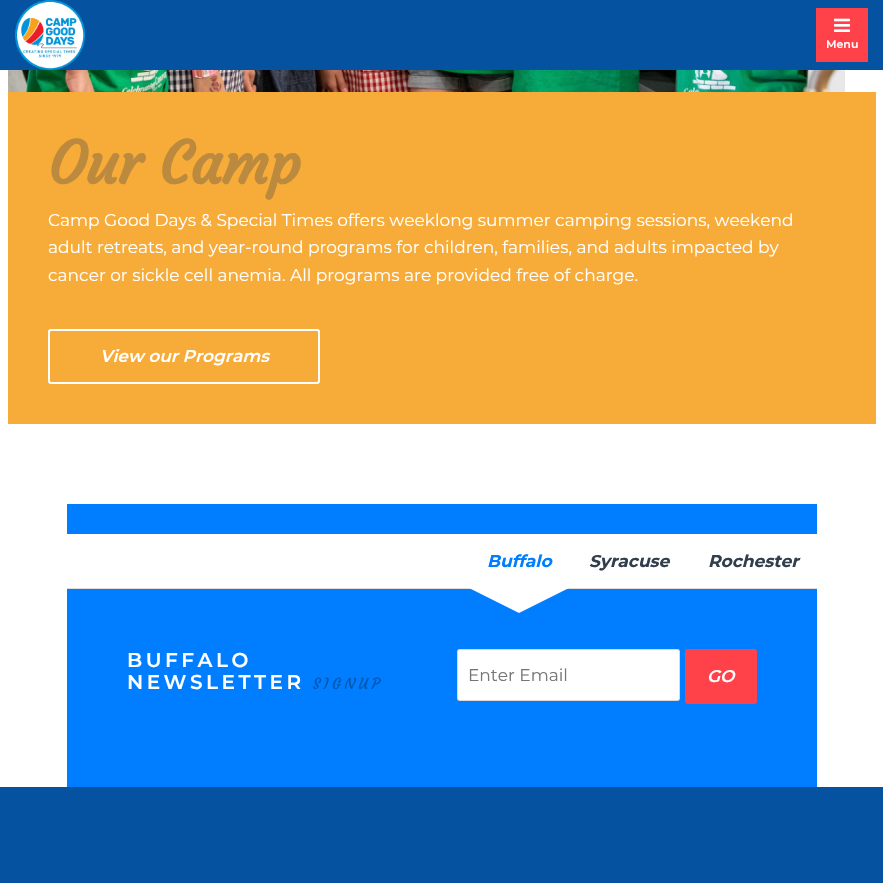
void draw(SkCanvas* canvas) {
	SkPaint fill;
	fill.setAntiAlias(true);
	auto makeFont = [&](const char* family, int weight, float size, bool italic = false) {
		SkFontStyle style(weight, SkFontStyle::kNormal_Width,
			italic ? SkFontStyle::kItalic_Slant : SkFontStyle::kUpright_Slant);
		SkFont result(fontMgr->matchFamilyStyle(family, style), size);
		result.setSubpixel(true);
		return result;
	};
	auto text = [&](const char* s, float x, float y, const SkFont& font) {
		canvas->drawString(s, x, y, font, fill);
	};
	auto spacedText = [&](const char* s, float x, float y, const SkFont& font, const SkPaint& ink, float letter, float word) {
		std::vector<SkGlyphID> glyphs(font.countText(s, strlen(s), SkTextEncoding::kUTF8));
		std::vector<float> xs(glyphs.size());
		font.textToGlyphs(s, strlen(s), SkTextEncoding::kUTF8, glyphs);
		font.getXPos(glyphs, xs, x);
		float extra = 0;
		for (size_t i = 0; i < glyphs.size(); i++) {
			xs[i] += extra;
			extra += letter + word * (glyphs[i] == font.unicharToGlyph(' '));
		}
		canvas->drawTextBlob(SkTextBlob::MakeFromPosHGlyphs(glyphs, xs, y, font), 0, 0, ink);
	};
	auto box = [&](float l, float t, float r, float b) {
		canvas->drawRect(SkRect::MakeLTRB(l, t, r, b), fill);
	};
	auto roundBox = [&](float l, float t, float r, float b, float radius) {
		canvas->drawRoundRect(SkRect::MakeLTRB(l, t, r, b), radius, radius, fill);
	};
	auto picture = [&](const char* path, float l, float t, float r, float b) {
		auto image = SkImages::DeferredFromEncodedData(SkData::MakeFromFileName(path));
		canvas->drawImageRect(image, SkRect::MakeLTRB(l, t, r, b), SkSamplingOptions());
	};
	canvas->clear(0xFFFFFFFF);
	fill.setColor(0xFF0452A0);
	box(0, 0, 883, 70);
	picture("image0.png", 15, 0, 85, 70);
	fill.setColor(0xFFFF4249);
	box(816, 8, 868, 62);
	picture("image1.png", 834, 18, 851, 32);
	picture("image2.png", 8, 70, 845, 92);
	fill.setColor(0xFFF7AB38);
	box(8, 92, 876, 424);
	fill.setStyle(SkPaint::kStroke_Style);
	fill.setStrokeWidth(2);
	fill.setColor(0xFFFFFFFF);
	canvas->drawRoundRect(SkRect::MakeLTRB(49, 330, 319, 383), 2, 2, fill);
	fill.setStyle(SkPaint::kFill_Style);
	fill.setColor(0xFF007EFF);
	box(67, 504, 817, 787);
	fill.setColor(0xFFFFFFFF);
	box(67, 534, 817, 588);
	fill.setColor(0xFFDDDDDD);
	box(67, 588, 817, 589);
	fill.setColor(0xFFFFFFFF);
	canvas->drawPath(SkPathBuilder().moveTo(459, 583).lineTo(579, 583).lineTo(519, 613).close().detach(), fill);
	roundBox(457, 649, 680, 701, 3);
	fill.setStyle(SkPaint::kStroke_Style);
	fill.setStrokeWidth(1);
	fill.setColor(0x26000000);
	canvas->drawRoundRect(SkRect::MakeLTRB(457.5f, 649.5f, 679.5f, 700.5f), 2.5f, 2.5f, fill);
	fill.setStyle(SkPaint::kFill_Style);
	fill.setColor(0xFFFF4249);
	roundBox(685, 649, 757, 704, 3);
	fill.setColor(0xFF0452A0);
	box(0, 787, 883, 883);
	auto font1 = makeFont("Montserrat", 600, 11);
	fill.setColor(0xFFFFFFFF);
	text("Menu", 826, 48, font1);
	auto font2 = makeFont("Courgette", 700, 58);
	fill.setColor(0xFFBC8A3E);
	text("Our Camp", 48, 184, font2);
	auto font3 = makeFont("Montserrat", 400, 17);
	fill.setColor(0xFFFFFFFF);
	text("Camp Good Days & Special Times offers weeklong summer camping sessions, weekend", 48, 226, font3);
	text("adult retreats, and year-round programs for children, families, and adults impacted by", 48, 253, font3);
	text("cancer or sickle cell anemia. All programs are provided free of charge.", 48, 281, font3);
	auto font4 = makeFont("Montserrat", 600, 17, true);
	text("View our Programs", 100, 362, font4);
	auto font5 = makeFont("Montserrat", 700, 17, true);
	fill.setColor(0xFF007EFF);
	text("Buffalo", 487, 567, font5);
	fill.setColor(0xFF313E4B);
	text("Syracuse", 589, 567, font5);
	text("Rochester", 708, 567, font5);
	auto font6 = makeFont("Montserrat", 600, 20);
	fill.setColor(0xFFFFFFFF);
	spacedText("BUFFALO", 127, 667, font6, fill, 3.5f, 0);
	spacedText("NEWSLETTER", 127, 689, font6, fill, 3.5f, 0);
	auto font7 = makeFont("Courgette", 400, 15);
	fill.setColor(0xFF0058B3);
	spacedText("SIGNUP", 313, 689, font7, fill, 3.5f, 0);
	fill.setColor(0xFF757575);
	text("Enter Email", 468, 681, font3);
	fill.setColor(0xFFFFFFFF);
	text("GO", 707, 682, font4);
}
